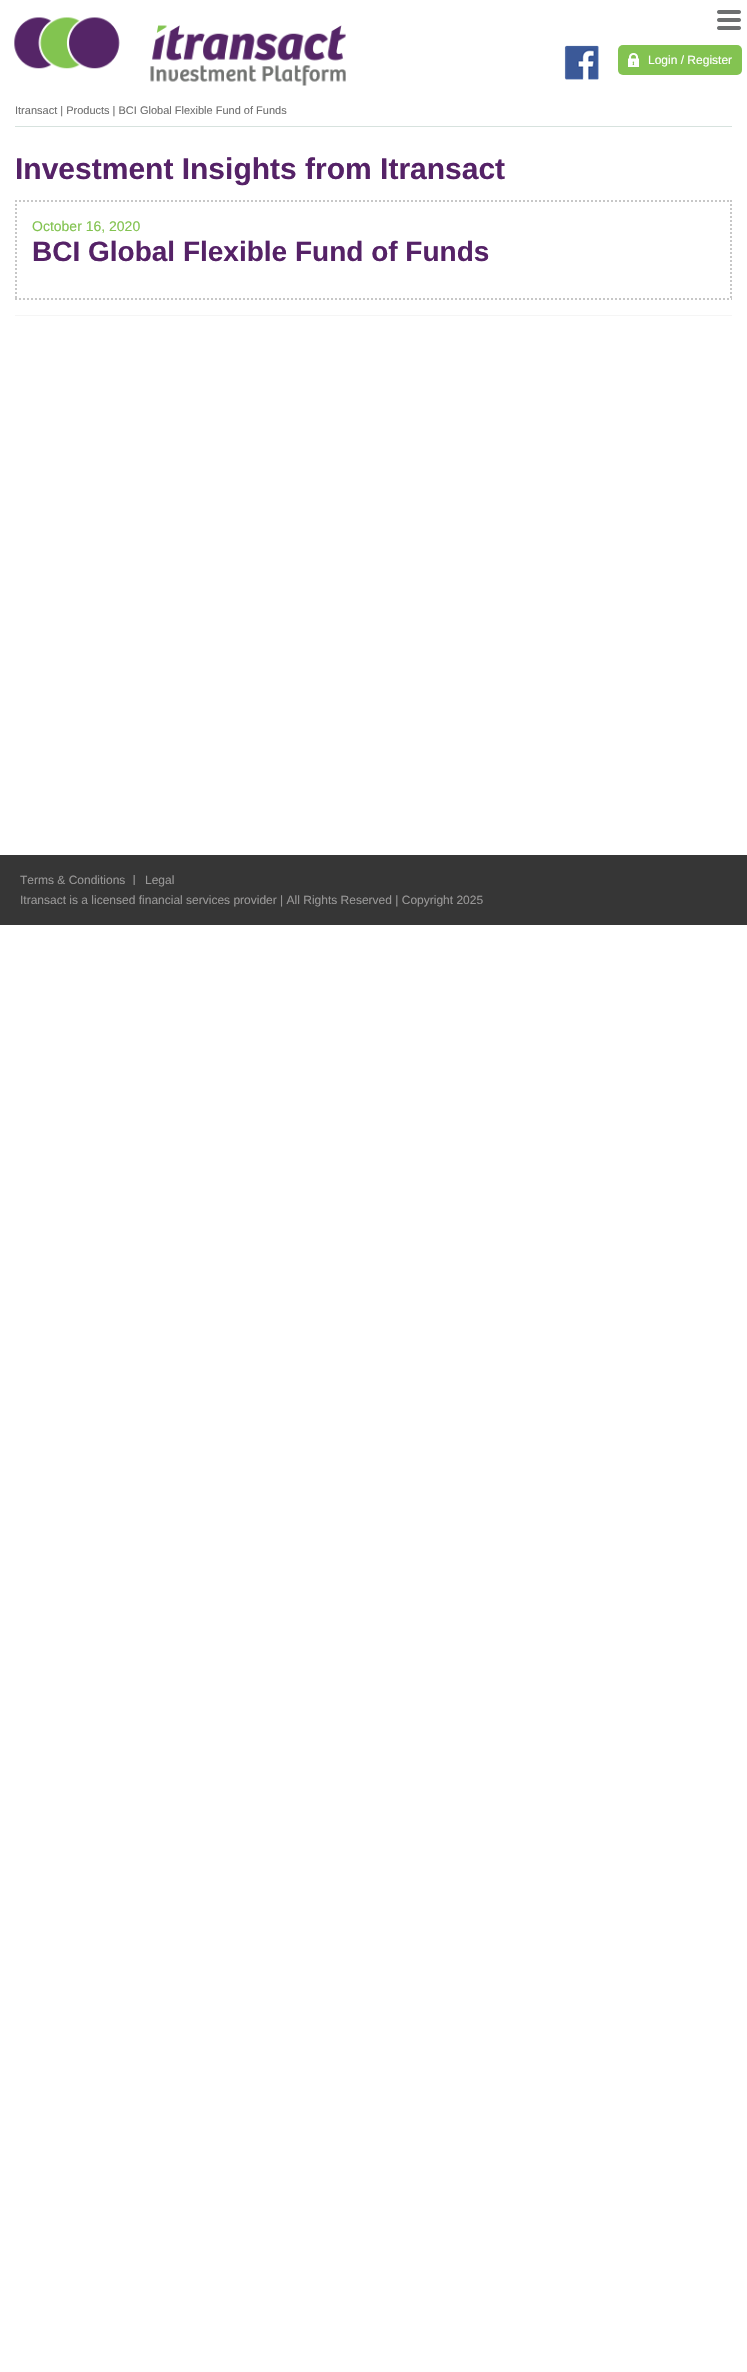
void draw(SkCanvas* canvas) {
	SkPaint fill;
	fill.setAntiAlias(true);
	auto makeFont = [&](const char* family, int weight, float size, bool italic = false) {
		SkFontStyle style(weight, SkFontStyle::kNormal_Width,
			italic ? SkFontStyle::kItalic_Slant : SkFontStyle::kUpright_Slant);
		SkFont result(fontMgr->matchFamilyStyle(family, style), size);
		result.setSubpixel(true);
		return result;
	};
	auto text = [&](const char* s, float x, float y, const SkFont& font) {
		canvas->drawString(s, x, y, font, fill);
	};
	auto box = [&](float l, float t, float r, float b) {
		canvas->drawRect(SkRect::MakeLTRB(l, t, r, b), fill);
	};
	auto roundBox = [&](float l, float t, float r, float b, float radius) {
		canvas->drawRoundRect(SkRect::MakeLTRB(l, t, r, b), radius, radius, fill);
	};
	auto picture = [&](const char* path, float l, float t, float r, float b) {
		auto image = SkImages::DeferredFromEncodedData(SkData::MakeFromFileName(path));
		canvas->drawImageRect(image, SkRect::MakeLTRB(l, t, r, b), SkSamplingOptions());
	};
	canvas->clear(0xFFFFFFFF);
	picture("image0.png", 14, 17, 346, 86);
	picture("image1.png", 717, 10, 741, 30);
	picture("image2.png", 564, 45, 599, 80);
	fill.setColor(0xFF83C351);
	roundBox(618, 45, 742, 75, 5);
	picture("image3.png", 628, 53, 639, 67);
	fill.setColor(0xFFD7E2DE);
	box(15, 126, 732, 127);
	fill.setStyle(SkPaint::kStroke_Style);
	fill.setStrokeWidth(2);
	fill.setColor(0xFFC7C7C7);
	fill.setPathEffect(SkDashPathEffect::Make({{2, 2}}, 0));
	canvas->drawPath(SkPathBuilder().moveTo(15, 201).lineTo(732, 201).detach(), fill);
	fill.setPathEffect(nullptr);
	fill.setPathEffect(SkDashPathEffect::Make({{2, 2}}, 0));
	canvas->drawPath(SkPathBuilder().moveTo(731, 200).lineTo(731, 300).detach(), fill);
	fill.setPathEffect(nullptr);
	fill.setPathEffect(SkDashPathEffect::Make({{2, 2}}, 0));
	canvas->drawPath(SkPathBuilder().moveTo(15, 299).lineTo(732, 299).detach(), fill);
	fill.setPathEffect(nullptr);
	fill.setPathEffect(SkDashPathEffect::Make({{2, 2}}, 0));
	canvas->drawPath(SkPathBuilder().moveTo(16, 200).lineTo(16, 300).detach(), fill);
	fill.setPathEffect(nullptr);
	fill.setStyle(SkPaint::kFill_Style);
	fill.setColor(0xFFF5F5F5);
	box(15, 315, 732, 316);
	fill.setColor(0xFF363636);
	box(0, 855, 747, 925);
	picture("image4.png", 133, 875, 135, 885);
	auto font1 = makeFont("Arimo", 400, 12);
	fill.setColor(0xFFFFFFFF);
	text("Login / Register", 648, 64, font1);
	auto font2 = makeFont("Arimo", 400, 11);
	fill.setColor(0xFF6F6F6F);
	text("Itransact | Products | BCI Global Flexible Fund of Funds", 15, 114, font2);
	auto font3 = makeFont("Liberation Sans", 700, 30);
	fill.setColor(0xFF552267);
	text("Investment Insights from Itransact", 15, 179, font3);
	auto font4 = makeFont("Arimo", 400, 14);
	fill.setColor(0xFF83C351);
	text("October 16, 2020", 32, 231, font4);
	auto font5 = makeFont("Arimo", 700, 28);
	fill.setColor(0xFF552267);
	text("BCI Global Flexible Fund of Funds", 32, 261, font5);
	fill.setColor(0xFF989797);
	text("Terms & Conditions", 20, 884, font1);
	text("Legal", 145, 884, font1);
	text("Itransact is a licensed financial services provider | All Rights Reserved | Copyright 2025", 20, 904, font1);
}
